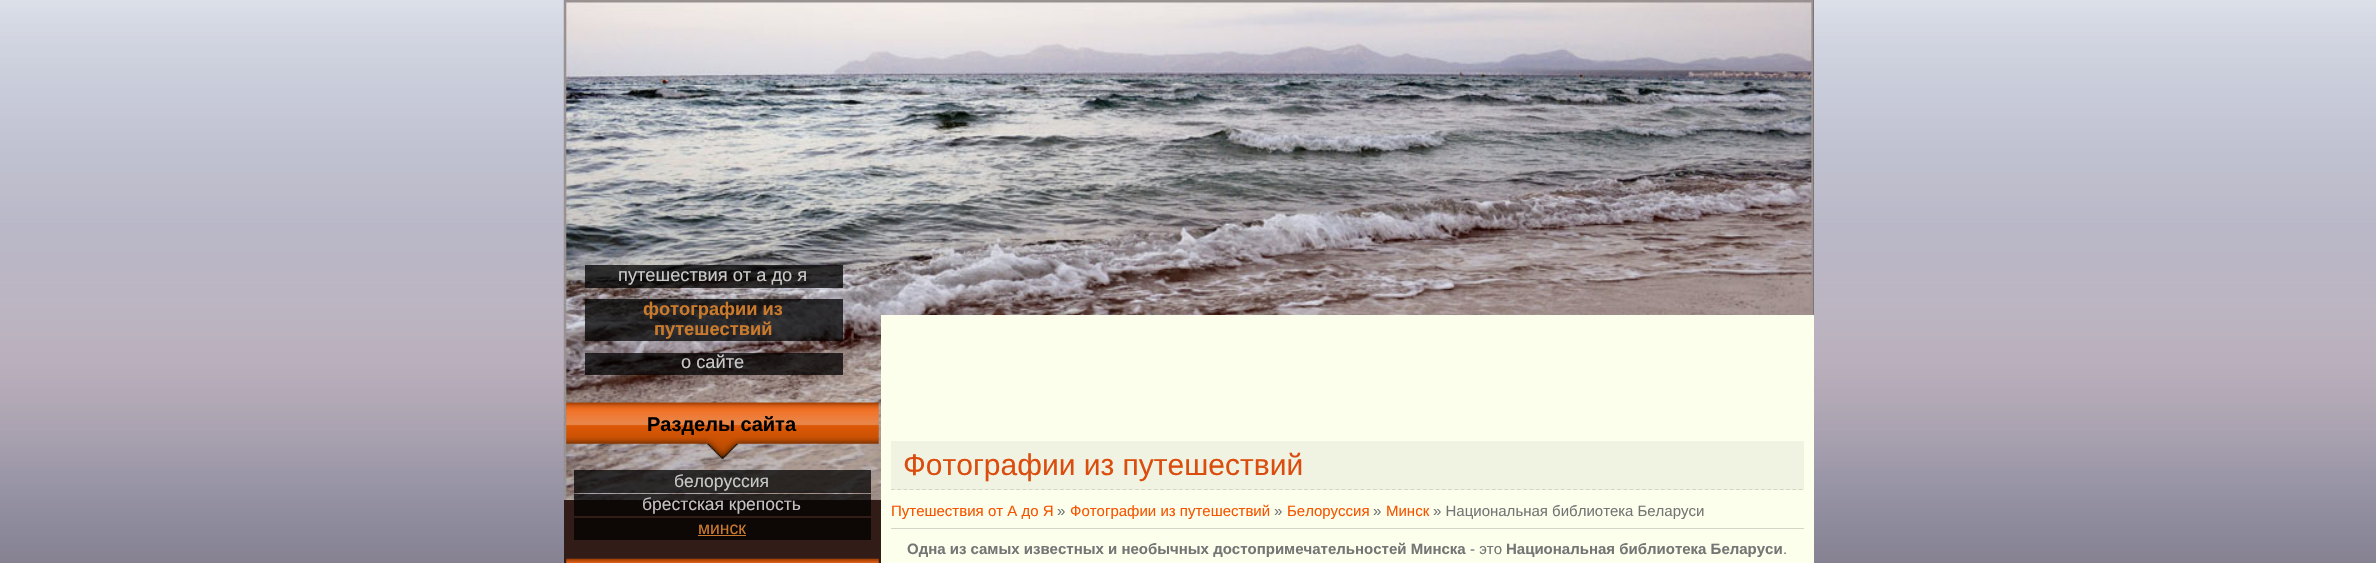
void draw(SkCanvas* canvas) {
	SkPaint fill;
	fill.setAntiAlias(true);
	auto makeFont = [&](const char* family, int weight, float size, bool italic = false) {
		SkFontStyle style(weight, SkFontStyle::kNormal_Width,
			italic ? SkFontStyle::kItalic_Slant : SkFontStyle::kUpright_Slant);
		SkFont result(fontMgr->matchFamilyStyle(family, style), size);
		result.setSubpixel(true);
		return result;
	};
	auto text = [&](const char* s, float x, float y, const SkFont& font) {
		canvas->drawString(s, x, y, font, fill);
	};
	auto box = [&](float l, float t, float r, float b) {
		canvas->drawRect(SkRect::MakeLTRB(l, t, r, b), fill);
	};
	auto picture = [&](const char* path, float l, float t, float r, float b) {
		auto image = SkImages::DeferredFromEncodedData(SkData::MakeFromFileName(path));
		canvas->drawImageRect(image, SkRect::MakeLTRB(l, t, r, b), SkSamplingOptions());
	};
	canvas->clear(0xFFFFFFFF);
	picture("image0.png", 0, 0, 2376, 563);
	fill.setColor(0xFF321C18);
	box(564, 0, 1814, 563);
	picture("image1.png", 563, 0, 1814, 500);
	fill.setColor(0xBF000000);
	box(585, 265, 843, 288);
	box(585, 299, 843, 341);
	box(585, 353, 843, 375);
	picture("image2.png", 566, 402, 879, 459);
	box(574, 470, 871, 493);
	box(574, 494, 871, 516);
	fill.setColor(0xFF0D0706);
	box(574, 518, 871, 540);
	fill.setColor(0xFFCA7A2C);
	box(698, 535, 746, 536);
	picture("image3.png", 566, 558, 879, 563);
	fill.setColor(0xFFFDFFED);
	box(881, 315, 1814, 563);
	fill.setColor(0xFFF1F3E2);
	box(891, 441, 1804, 490);
	fill.setStyle(SkPaint::kStroke_Style);
	fill.setStrokeWidth(1.2f);
	fill.setColor(0xFFD3D5C6);
	fill.setPathEffect(SkDashPathEffect::Make({{3.75f, 2.51f}}, 0));
	canvas->drawPath(SkPathBuilder().moveTo(891, 489.5f).lineTo(1804, 489.5f).detach(), fill);
	fill.setPathEffect(nullptr);
	fill.setStyle(SkPaint::kFill_Style);
	box(891, 528, 1804, 529);
	auto font1 = makeFont("Liberation Sans", 400, 18.25f);
	fill.setColor(0xFFCAC9C9);
	text("путешествия от а до я", 618, 281, font1);
	auto font2 = makeFont("Liberation Sans", 700, 18.25f);
	fill.setColor(0xFFCA7A2C);
	text("фотографии из", 643, 315, font2);
	text("путешествий", 654, 335, font2);
	fill.setColor(0xFFCAC9C9);
	text("о сайте", 681, 368, font1);
	auto font3 = makeFont("Liberation Sans", 700, 20);
	fill.setColor(0xFF000000);
	text("Разделы сайта", 647, 431, font3);
	auto font4 = makeFont("Liberation Sans", 400, 17.5f);
	fill.setColor(0xFFCAC9C9);
	text("белоруссия", 674, 487, font4);
	fill.setColor(0xFFC2C1C1);
	text("брестская крепость", 642, 510, font4);
	fill.setColor(0xFFCA7A2C);
	text("минск", 698, 534, font4);
	auto font5 = makeFont("Liberation Sans", 400, 30);
	fill.setColor(0xFFDA4D0E);
	text("Фотографии из путешествий", 903, 475, font5);
	auto font6 = makeFont("Liberation Sans", 400, 15);
	fill.setColor(0xFFF65400);
	text("Путешествия от А до Я", 891, 516, font6);
	fill.setColor(0xFF757575);
	text("»", 1057, 516, font6);
	fill.setColor(0xFFF65400);
	text("Фотографии из путешествий", 1070, 516, font6);
	fill.setColor(0xFF757575);
	text("»", 1274, 516, font6);
	fill.setColor(0xFFF65400);
	text("Белоруссия", 1287, 516, font6);
	fill.setColor(0xFF757575);
	text("»", 1373, 516, font6);
	fill.setColor(0xFFF65400);
	text("Минск", 1386, 516, font6);
	fill.setColor(0xFF757575);
	text("» Национальная библиотека Беларуси", 1433, 516, font6);
	auto font7 = makeFont("Liberation Sans", 700, 15);
	text("Одна из самых известных и необычных достопримечательностей Минска", 907, 554, font7);
	text("- это", 1470, 554, font6);
	text("Национальная библиотека Беларуси", 1506, 554, font7);
	text(".", 1783, 554, font6);
}
